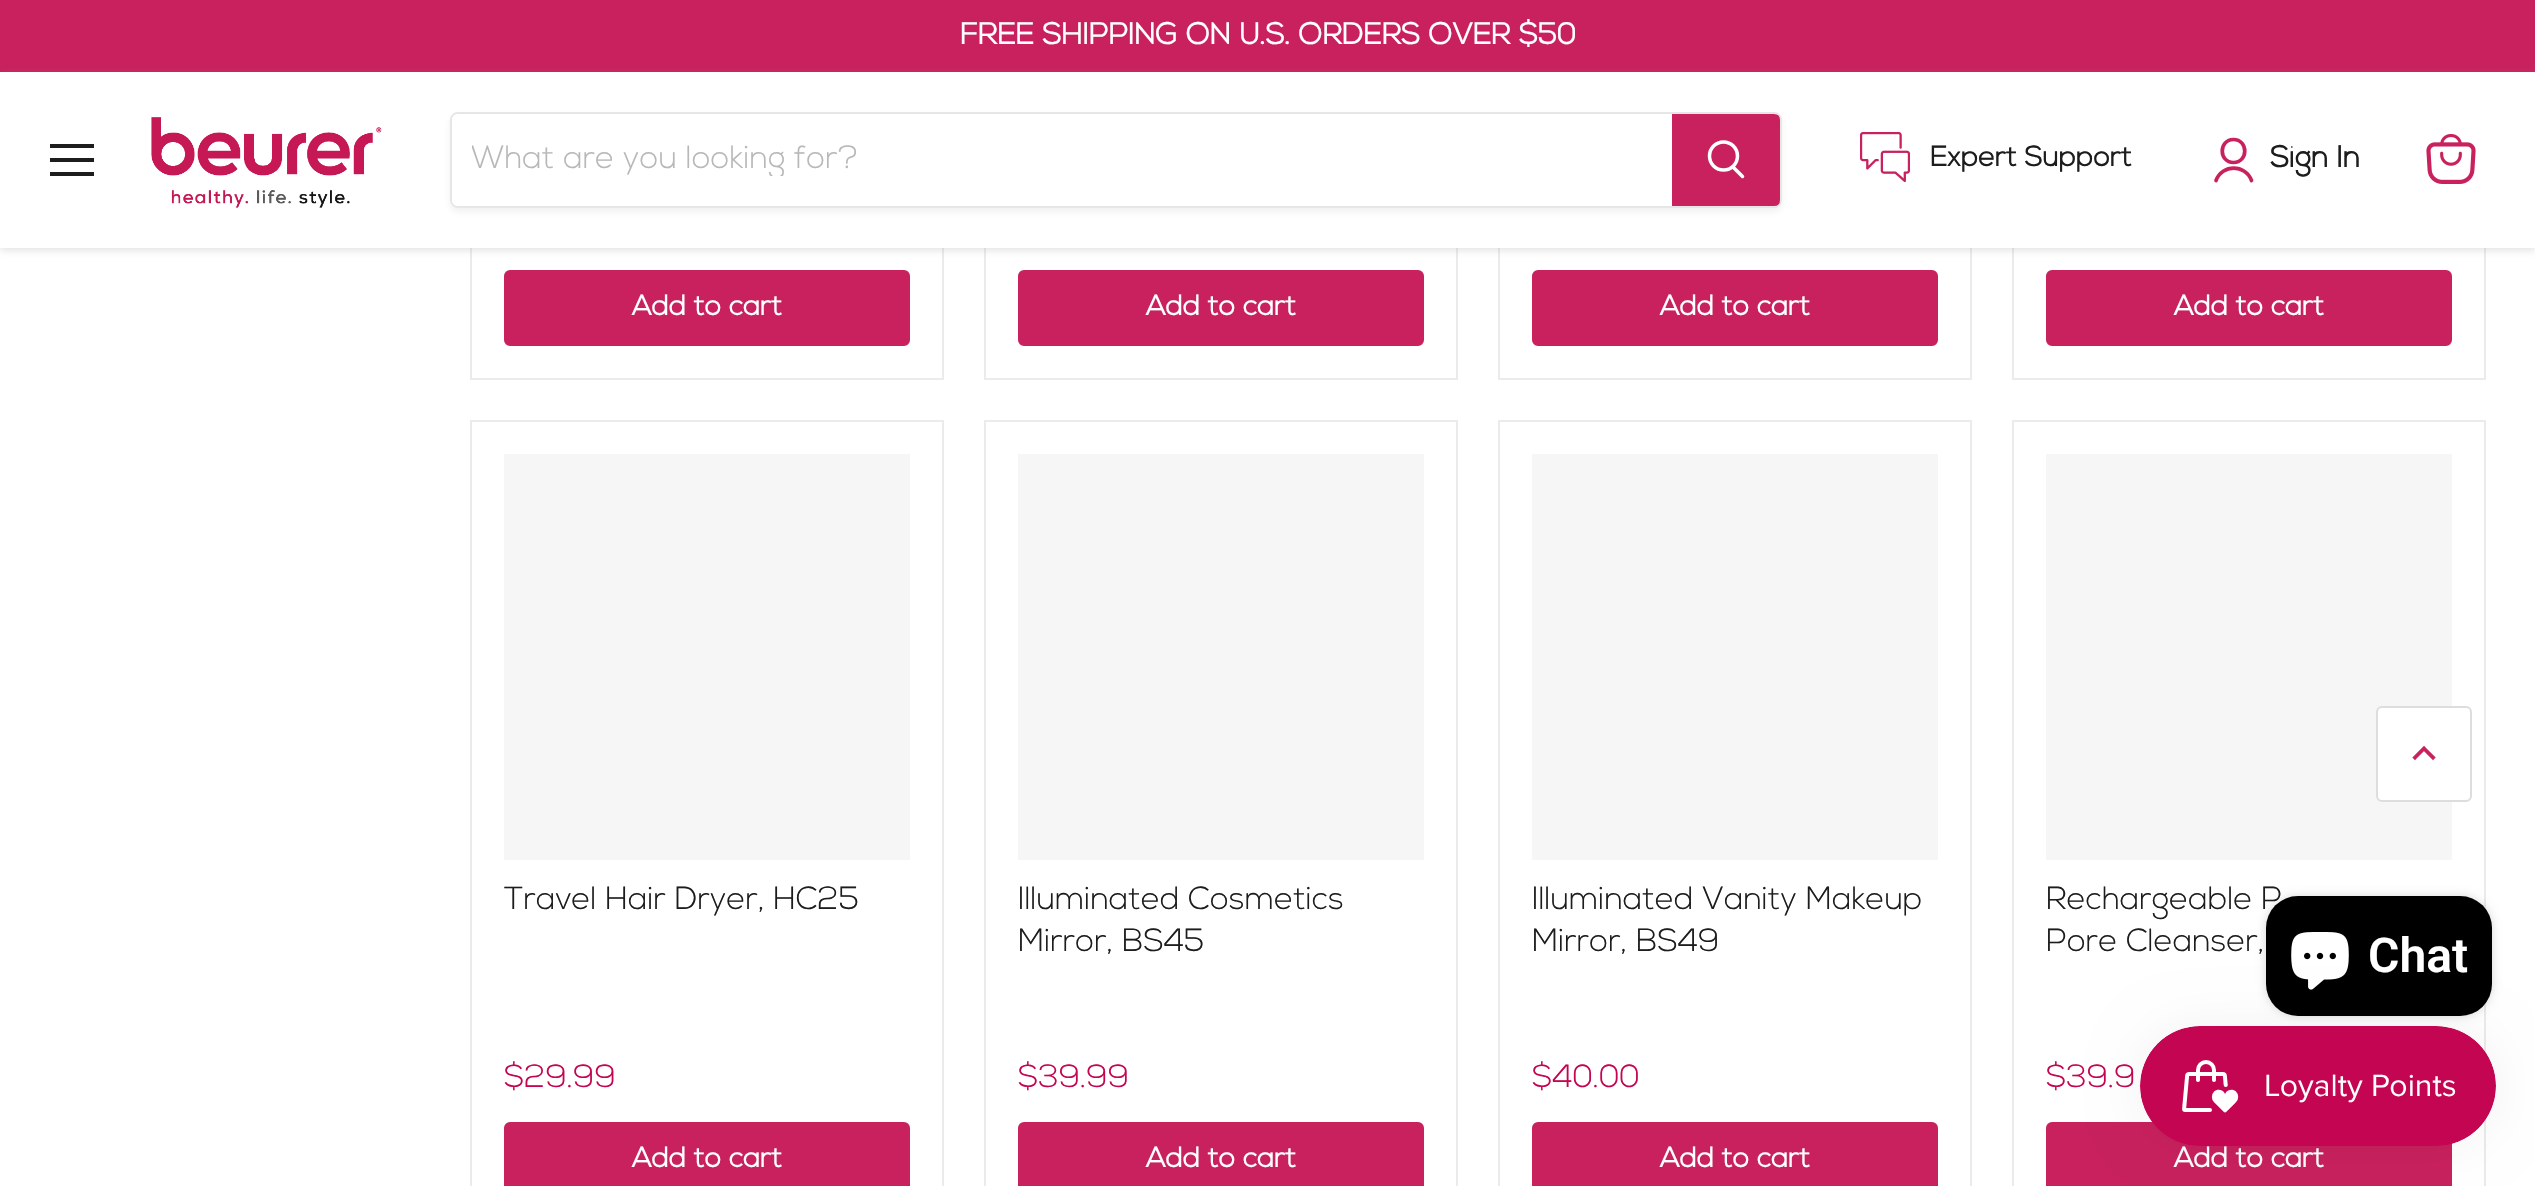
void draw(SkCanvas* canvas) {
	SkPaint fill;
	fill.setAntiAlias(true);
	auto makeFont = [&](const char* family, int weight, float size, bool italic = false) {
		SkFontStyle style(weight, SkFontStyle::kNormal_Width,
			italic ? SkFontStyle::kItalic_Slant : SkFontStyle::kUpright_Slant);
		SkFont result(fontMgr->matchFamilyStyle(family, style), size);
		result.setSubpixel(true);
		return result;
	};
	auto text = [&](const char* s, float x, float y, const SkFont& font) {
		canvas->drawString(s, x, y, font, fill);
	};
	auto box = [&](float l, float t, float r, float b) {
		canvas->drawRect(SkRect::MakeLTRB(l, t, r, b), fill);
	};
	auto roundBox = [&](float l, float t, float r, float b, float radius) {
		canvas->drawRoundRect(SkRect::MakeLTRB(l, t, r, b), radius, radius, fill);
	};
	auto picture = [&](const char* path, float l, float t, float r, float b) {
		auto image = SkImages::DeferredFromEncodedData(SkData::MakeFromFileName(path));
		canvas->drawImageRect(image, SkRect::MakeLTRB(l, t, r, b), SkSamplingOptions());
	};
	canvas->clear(0xFFFFFFFF);
	fill.setStyle(SkPaint::kStroke_Style);
	fill.setStrokeWidth(2);
	fill.setColor(0xFFEBEBEB);
	canvas->drawRect(SkRect::MakeLTRB(471, -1, 943, 379), fill);
	canvas->drawRect(SkRect::MakeLTRB(985, -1, 1457, 379), fill);
	canvas->drawRect(SkRect::MakeLTRB(1499, -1, 1971, 379), fill);
	canvas->drawRect(SkRect::MakeLTRB(2013, -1, 2485, 379), fill);
	fill.setStyle(SkPaint::kFill_Style);
	fill.setColor(0xFFC8215D);
	box(0, 0, 2535, 72);
	fill.setColor(0x40808080);
	fill.setMaskFilter(SkMaskFilter::MakeBlur(kNormal_SkBlurStyle, 4));
	canvas->drawRect(SkRect::MakeLTRB(0, 74, 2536, 250), fill);
	fill.setMaskFilter(nullptr);
	fill.setColor(0xFFFFFFFF);
	box(0, 72, 2535, 248);
	fill.setColor(0xFF1D1D1D);
	box(50, 144, 94, 148);
	box(50, 158, 94, 162);
	box(50, 172, 94, 176);
	picture("image0.png", 151, 117, 382, 208);
	canvas->save();
	canvas->clipPath(SkPathBuilder(SkPathFillType::kEvenOdd).moveTo(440, 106).lineTo(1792, 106).lineTo(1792, 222).lineTo(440, 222).close().moveTo(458, 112).lineTo(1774, 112).cubicTo(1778.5f, 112, 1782, 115.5f, 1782, 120).lineTo(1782, 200).cubicTo(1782, 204.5f, 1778.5f, 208, 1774, 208).lineTo(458, 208).cubicTo(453.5f, 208, 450, 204.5f, 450, 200).lineTo(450, 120).cubicTo(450, 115.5f, 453.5f, 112, 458, 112).close().detach(), true);
	fill.setColor(0x1C808080);
	fill.setMaskFilter(SkMaskFilter::MakeBlur(kNormal_SkBlurStyle, 3));
	canvas->drawRoundRect(SkRect::MakeLTRB(450, 116, 1782, 212), 8, 8, fill);
	fill.setMaskFilter(nullptr);
	canvas->restore();
	fill.setStyle(SkPaint::kStroke_Style);
	fill.setColor(0x33808080);
	canvas->drawRoundRect(SkRect::MakeLTRB(451, 113, 1781, 207), 7, 7, fill);
	fill.setStyle(SkPaint::kFill_Style);
	fill.setColor(0xFFFFFFFF);
	canvas->drawPath(SkPathBuilder().moveTo(458, 114).lineTo(1672, 114).lineTo(1672, 206).lineTo(458, 206).cubicTo(454.5f, 206, 452, 203.5f, 452, 200).lineTo(452, 120).cubicTo(452, 116.5f, 454.5f, 114, 458, 114).close().detach(), fill);
	fill.setColor(0xFFC8215D);
	canvas->drawPath(SkPathBuilder().moveTo(1673, 115).lineTo(1774, 115).cubicTo(1777, 115, 1779, 117, 1779, 120).lineTo(1779, 200).cubicTo(1779, 203, 1777, 205, 1774, 205).lineTo(1673, 205).close().detach(), fill);
	fill.setStyle(SkPaint::kStroke_Style);
	canvas->drawPath(SkPathBuilder().moveTo(1673, 115).lineTo(1774, 115).cubicTo(1777, 115, 1779, 117, 1779, 120).lineTo(1779, 200).cubicTo(1779, 203, 1777, 205, 1774, 205).lineTo(1673, 205).close().detach(), fill);
	fill.setStrokeWidth(3.5f);
	fill.setStrokeCap(SkPaint::kRound_Cap);
	fill.setColor(0xFFFFFFFF);
	canvas->drawPath(SkPathBuilder().moveTo(1742.5f, 176.5f).lineTo(1733, 167).detach(), fill);
	fill.setStrokeCap(SkPaint::kButt_Cap);
	canvas->drawCircle(1723.5f, 156, 14, fill);
	picture("image1.png", 1860, 132, 1910, 182);
	fill.setStrokeWidth(3.7f);
	fill.setStrokeCap(SkPaint::kRound_Cap);
	fill.setStrokeJoin(SkPaint::kRound_Join);
	fill.setColor(0xFFC8215D);
	canvas->drawPath(SkPathBuilder().moveTo(2233.5f, 162.5f).cubicTo(2248.5f, 162.5f, 2248.5f, 139.5f, 2233.5f, 139.5f).cubicTo(2218.5f, 139.5f, 2218.5f, 162.5f, 2233.5f, 162.5f).close().moveTo(2251.5f, 180.5f).cubicTo(2245.5f, 164, 2222, 164, 2216, 180.5f).detach(), fill);
	picture("image2.png", 2426, 134, 2476, 184);
	fill.setStyle(SkPaint::kFill_Style);
	canvas->drawRoundRect(SkRect::MakeLTRB(505, 271, 909, 345), 5, 5, fill);
	fill.setStyle(SkPaint::kStroke_Style);
	fill.setStrokeWidth(2);
	fill.setStrokeCap(SkPaint::kButt_Cap);
	fill.setStrokeJoin(SkPaint::kMiter_Join);
	canvas->drawRoundRect(SkRect::MakeLTRB(505, 271, 909, 345), 5, 5, fill);
	fill.setStyle(SkPaint::kFill_Style);
	canvas->drawRoundRect(SkRect::MakeLTRB(1019, 271, 1423, 345), 5, 5, fill);
	fill.setStyle(SkPaint::kStroke_Style);
	canvas->drawRoundRect(SkRect::MakeLTRB(1019, 271, 1423, 345), 5, 5, fill);
	fill.setStyle(SkPaint::kFill_Style);
	canvas->drawRoundRect(SkRect::MakeLTRB(1533, 271, 1937, 345), 5, 5, fill);
	fill.setStyle(SkPaint::kStroke_Style);
	canvas->drawRoundRect(SkRect::MakeLTRB(1533, 271, 1937, 345), 5, 5, fill);
	fill.setStyle(SkPaint::kFill_Style);
	canvas->drawRoundRect(SkRect::MakeLTRB(2047, 271, 2451, 345), 5, 5, fill);
	fill.setStyle(SkPaint::kStroke_Style);
	canvas->drawRoundRect(SkRect::MakeLTRB(2047, 271, 2451, 345), 5, 5, fill);
	fill.setColor(0xFFEBEBEB);
	canvas->drawRect(SkRect::MakeLTRB(471, 421, 943, 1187), fill);
	fill.setStyle(SkPaint::kFill_Style);
	fill.setColor(0xFFF6F6F6);
	box(504, 454, 910, 860);
	fill.setColor(0xFFC8215D);
	canvas->drawRoundRect(SkRect::MakeLTRB(505, 1123, 909, 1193), 5, 5, fill);
	fill.setStyle(SkPaint::kStroke_Style);
	canvas->drawRoundRect(SkRect::MakeLTRB(505, 1123, 909, 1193), 5, 5, fill);
	fill.setColor(0xFFEBEBEB);
	canvas->drawRect(SkRect::MakeLTRB(985, 421, 1457, 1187), fill);
	fill.setStyle(SkPaint::kFill_Style);
	fill.setColor(0xFFF6F6F6);
	box(1018, 454, 1424, 860);
	fill.setColor(0xFFC8215D);
	canvas->drawRoundRect(SkRect::MakeLTRB(1019, 1123, 1423, 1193), 5, 5, fill);
	fill.setStyle(SkPaint::kStroke_Style);
	canvas->drawRoundRect(SkRect::MakeLTRB(1019, 1123, 1423, 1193), 5, 5, fill);
	fill.setColor(0xFFEBEBEB);
	canvas->drawRect(SkRect::MakeLTRB(1499, 421, 1971, 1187), fill);
	fill.setStyle(SkPaint::kFill_Style);
	fill.setColor(0xFFF6F6F6);
	box(1532, 454, 1938, 860);
	fill.setColor(0xFFC8215D);
	canvas->drawRoundRect(SkRect::MakeLTRB(1533, 1123, 1937, 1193), 5, 5, fill);
	fill.setStyle(SkPaint::kStroke_Style);
	canvas->drawRoundRect(SkRect::MakeLTRB(1533, 1123, 1937, 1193), 5, 5, fill);
	fill.setColor(0xFFEBEBEB);
	canvas->drawRect(SkRect::MakeLTRB(2013, 421, 2485, 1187), fill);
	fill.setStyle(SkPaint::kFill_Style);
	fill.setColor(0xFFF6F6F6);
	box(2046, 454, 2452, 860);
	fill.setColor(0xFFC8215D);
	canvas->drawRoundRect(SkRect::MakeLTRB(2047, 1123, 2451, 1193), 5, 5, fill);
	fill.setStyle(SkPaint::kStroke_Style);
	canvas->drawRoundRect(SkRect::MakeLTRB(2047, 1123, 2451, 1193), 5, 5, fill);
	fill.setStyle(SkPaint::kFill_Style);
	fill.setColor(0xFFFFFFFF);
	canvas->drawRoundRect(SkRect::MakeLTRB(2377, 707, 2471, 801), 5, 5, fill);
	fill.setStyle(SkPaint::kStroke_Style);
	fill.setColor(0xFFDDDDDD);
	canvas->drawRoundRect(SkRect::MakeLTRB(2377, 707, 2471, 801), 5, 5, fill);
	fill.setStrokeWidth(3.8f);
	fill.setStrokeCap(SkPaint::kSquare_Cap);
	fill.setColor(0xFFC8215D);
	canvas->drawPath(SkPathBuilder().moveTo(2424, 748.5f).lineTo(2415, 757.5f).moveTo(2424, 748.5f).lineTo(2433, 757.5f).detach(), fill);
	fill.setStyle(SkPaint::kFill_Style);
	fill.setColor(0x26000000);
	fill.setMaskFilter(SkMaskFilter::MakeBlur(kNormal_SkBlurStyle, 5));
	canvas->drawRoundRect(SkRect::MakeLTRB(2266, 896, 2492, 1016), 32, 32, fill);
	fill.setMaskFilter(nullptr);
	auto font1 = makeFont("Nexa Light", 700, 30);
	fill.setColor(0xFFFFFFFF);
	text("FREE SHIPPING ON U.S. ORDERS OVER $50", 960, 44, font1);
	canvas->save();
	canvas->clipRect(SkRect::MakeLTRB(472, 144, 1652, 176));
	auto font2 = makeFont("Nexa Light", 300, 32);
	fill.setColor(0xFFB8B8B8);
	text("What are you looking for?", 471, 168, font2);
	canvas->restore();
	auto font3 = makeFont("Nexa Light", 700, 28);
	fill.setColor(0xFF1D1D1D);
	text("Expert Support", 1930, 166, font3);
	text("Sign In", 2270, 167, font1);
	fill.setColor(0xFFFFFFFF);
	text("Add to cart", 632, 315, font3);
	text("Add to cart", 1146, 315, font3);
	text("Add to cart", 1660, 315, font3);
	text("Add to cart", 2174, 315, font3);
	fill.setColor(0xFF1D1D1D);
	text("Travel Hair Dryer, HC25", 504, 909, font2);
	fill.setColor(0xFFC40552);
	text("$29.99", 504, 1087, font2);
	fill.setColor(0xFFFFFFFF);
	text("Add to cart", 632, 1167, font3);
	fill.setColor(0xFF1D1D1D);
	text("Illuminated Cosmetics", 1018, 909, font2);
	text("Mirror, BS45", 1018, 951, font2);
	fill.setColor(0xFFC40552);
	text("$39.99", 1018, 1087, font2);
	fill.setColor(0xFFFFFFFF);
	text("Add to cart", 1146, 1167, font3);
	fill.setColor(0xFF1D1D1D);
	text("Illuminated Vanity Makeup", 1532, 909, font2);
	text("Mirror, BS49", 1532, 951, font2);
	fill.setColor(0xFFC40552);
	text("$40.00", 1532, 1087, font2);
	fill.setColor(0xFFFFFFFF);
	text("Add to cart", 1660, 1167, font3);
	fill.setColor(0xFF1D1D1D);
	text("Rechargeable P", 2046, 909, font2);
	text("Pore Cleanser,", 2046, 951, font2);
	fill.setColor(0xFFC40552);
	text("$39.9", 2046, 1087, font2);
	fill.setColor(0xFFFFFFFF);
	text("Add to cart", 2174, 1167, font3);
	fill.setColor(0xFF000000);
	roundBox(2266, 896, 2492, 1016, 32);
	picture("image3.png", 2291, 932, 2349, 990);
	auto font4 = makeFont("Roboto", 600, 48);
	fill.setColor(0xFFFFFFFF);
	text("Chat", 2368, 972, font4);
	fill.setColor(0x0D000000);
	fill.setMaskFilter(SkMaskFilter::MakeBlur(kNormal_SkBlurStyle, 25));
	canvas->drawRoundRect(SkRect::MakeLTRB(2140, 1026, 2496, 1146), 60, 60, fill);
	fill.setMaskFilter(nullptr);
	picture("image4.png", 2140, 1026, 2496, 1146);
}
